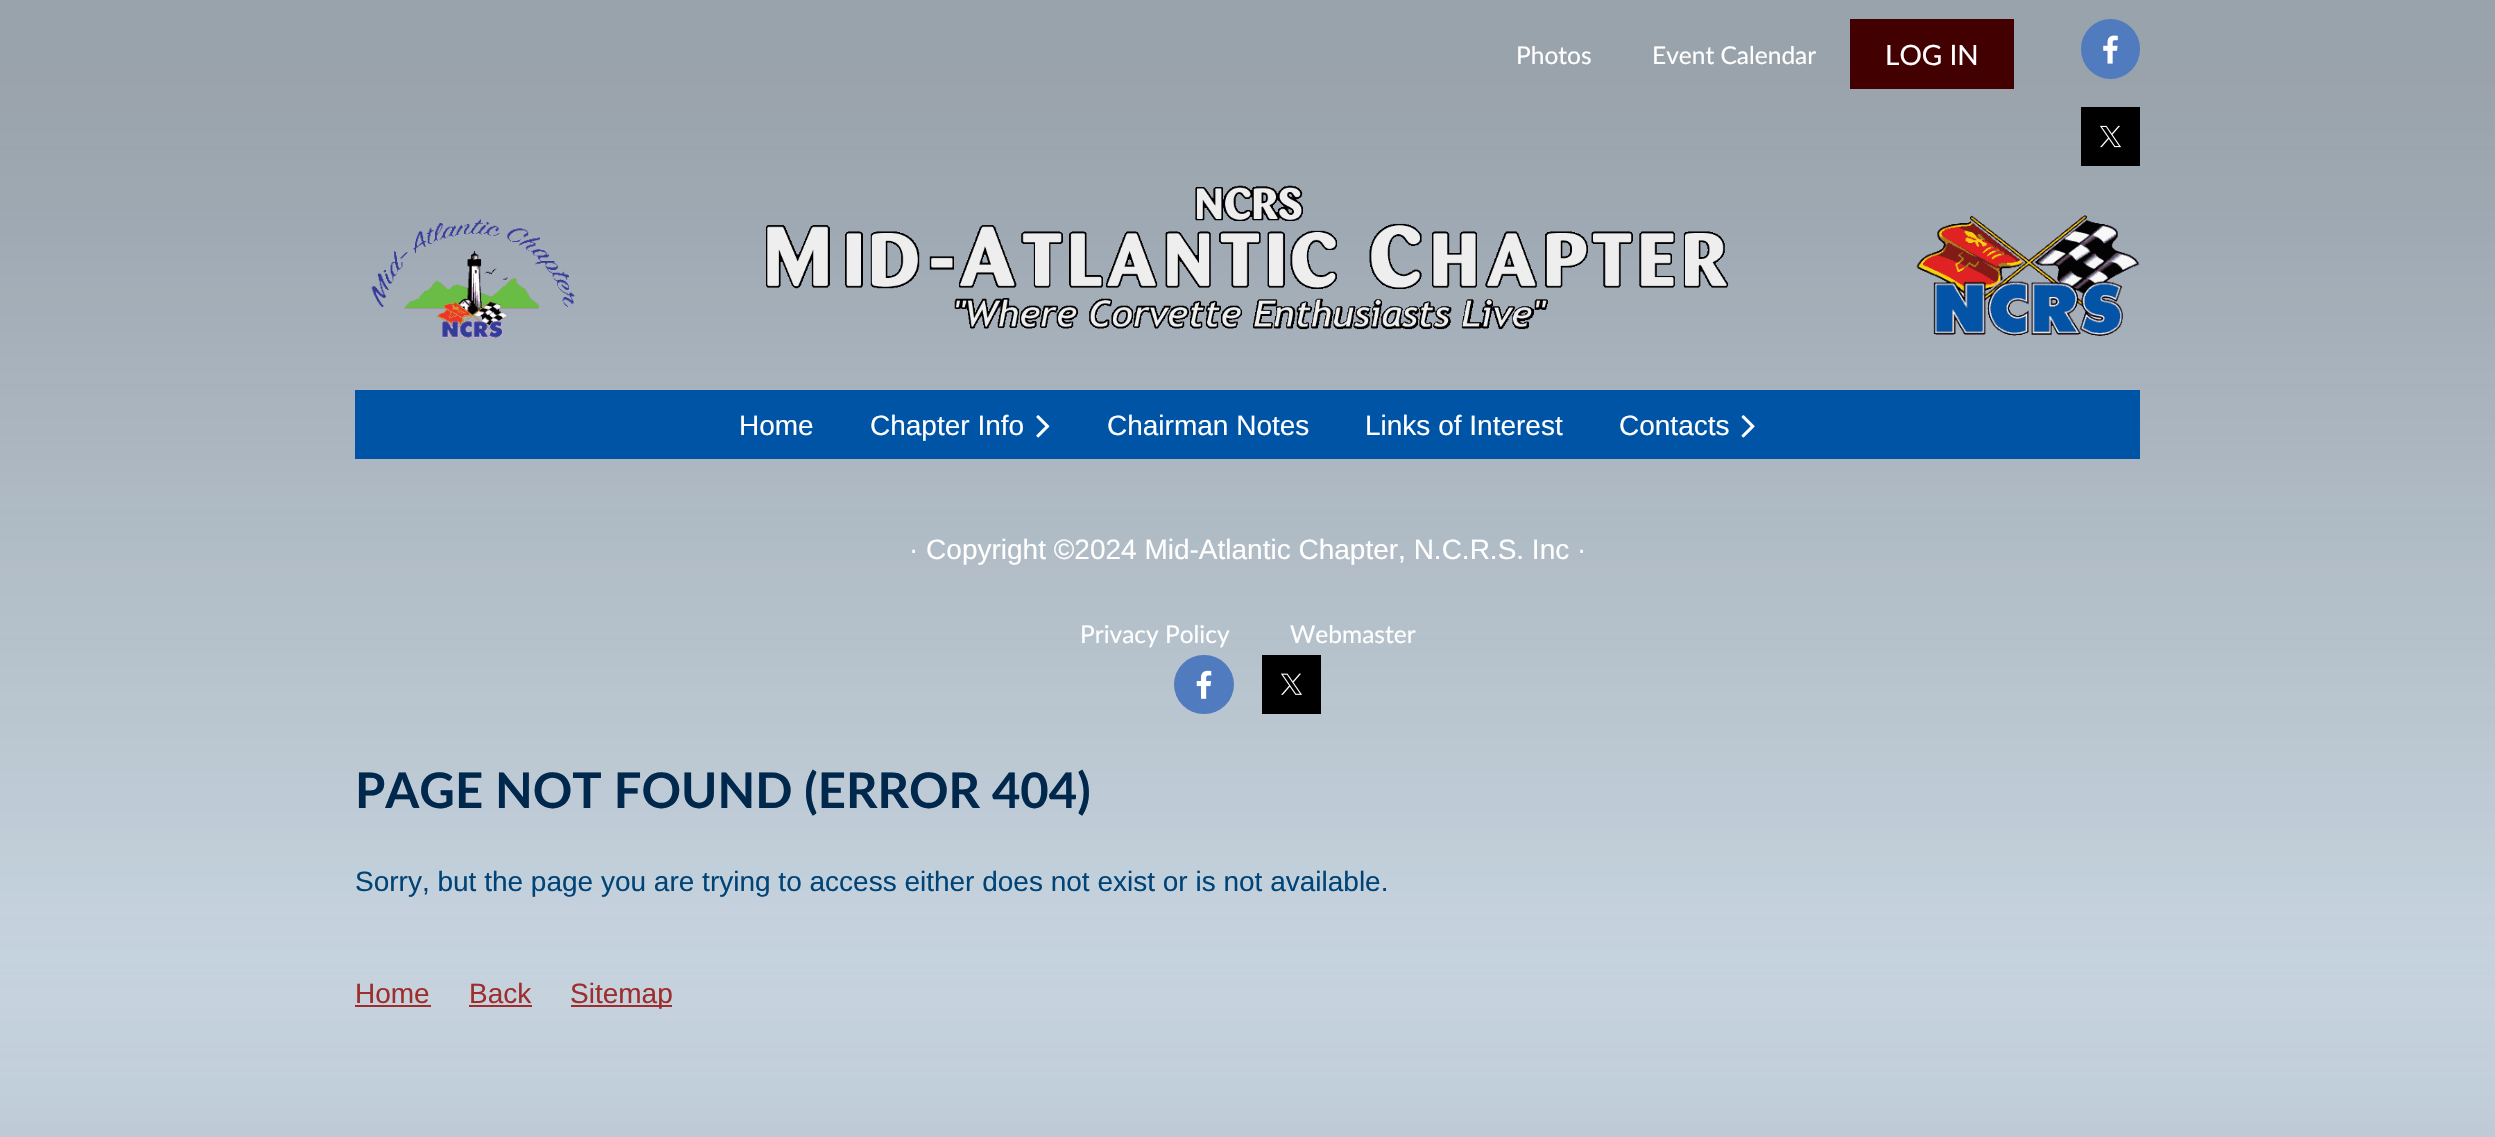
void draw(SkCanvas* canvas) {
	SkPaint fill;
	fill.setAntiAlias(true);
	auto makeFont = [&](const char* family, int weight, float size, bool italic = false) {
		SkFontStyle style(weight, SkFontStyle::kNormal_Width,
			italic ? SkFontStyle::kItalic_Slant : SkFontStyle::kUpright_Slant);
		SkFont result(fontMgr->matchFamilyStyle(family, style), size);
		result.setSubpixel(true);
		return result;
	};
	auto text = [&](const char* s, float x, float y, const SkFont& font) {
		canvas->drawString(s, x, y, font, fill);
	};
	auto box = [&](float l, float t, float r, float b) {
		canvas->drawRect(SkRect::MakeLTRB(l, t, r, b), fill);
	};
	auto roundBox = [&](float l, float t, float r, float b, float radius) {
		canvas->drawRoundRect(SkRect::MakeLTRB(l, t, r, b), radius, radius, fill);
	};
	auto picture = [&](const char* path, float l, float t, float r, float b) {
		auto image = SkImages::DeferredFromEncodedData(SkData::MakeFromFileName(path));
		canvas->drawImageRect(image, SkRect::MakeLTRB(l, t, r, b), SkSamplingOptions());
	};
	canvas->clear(0xFFFFFFFF);
	picture("image0.png", 0, 0, 2495, 1137);
	fill.setColor(0xFF420000);
	box(1850, 19, 2014, 89);
	fill.setColor(0xFF507BBE);
	roundBox(2081, 19, 2140, 79, 29.5f);
	picture("image1.png", 2103, 35, 2118, 64);
	fill.setColor(0xFF000000);
	box(2081, 107, 2140, 166);
	picture("image2.png", 2100, 125, 2121, 148);
	picture("image3.png", 371, 219, 575, 338);
	picture("image4.png", 766, 185, 1729, 330);
	picture("image5.png", 1916, 215, 2140, 336);
	fill.setColor(0xFF0054A6);
	box(355, 390, 2140, 459);
	picture("image6.png", 1036, 415, 1050, 438);
	picture("image7.png", 1741, 415, 1755, 438);
	fill.setColor(0xFF507BBE);
	roundBox(1174, 655, 1234, 714, 29.5f);
	picture("image8.png", 1196, 670, 1212, 699);
	fill.setColor(0xFF000000);
	box(1262, 655, 1321, 714);
	picture("image9.png", 1280, 673, 1302, 695);
	fill.setColor(0xFF9E2D2E);
	box(355, 1005, 431, 1007);
	box(469, 1005, 532, 1007);
	box(571, 1005, 672, 1007);
	auto font1 = makeFont("Lato", 400, 24.5f);
	fill.setColor(0xFFFFFFFF);
	text("Photos", 1516, 64, font1);
	text("Event Calendar", 1652, 64, font1);
	auto font2 = makeFont("Lato", 400, 28);
	text("LOG IN", 1885, 65, font2);
	auto font3 = makeFont("Liberation Sans", 400, 28);
	text("Home", 739, 435, font3);
	text("Chapter Info", 870, 435, font3);
	text("Chairman Notes", 1107, 435, font3);
	text("Links of Interest", 1365, 435, font3);
	text("Contacts", 1619, 435, font3);
	text("· Copyright ©2024 Mid-Atlantic Chapter, N.C.R.S. Inc ·", 909, 559, font3);
	text("Privacy Policy", 1080, 643, font1);
	text("Webmaster", 1290, 643, font1);
	auto font4 = makeFont("Lato", 700, 49);
	fill.setColor(0xFF00284C);
	text("PAGE NOT FOUND (ERROR 404)", 355, 808, font4);
	fill.setColor(0xFF004477);
	text("Sorry, but the page you are trying to access either does not exist or is not available.", 355, 891, font3);
	fill.setColor(0xFF9E2D2E);
	text("Home", 355, 1003, font3);
	text("Back", 469, 1003, font3);
	text("Sitemap", 570, 1003, font3);
}
